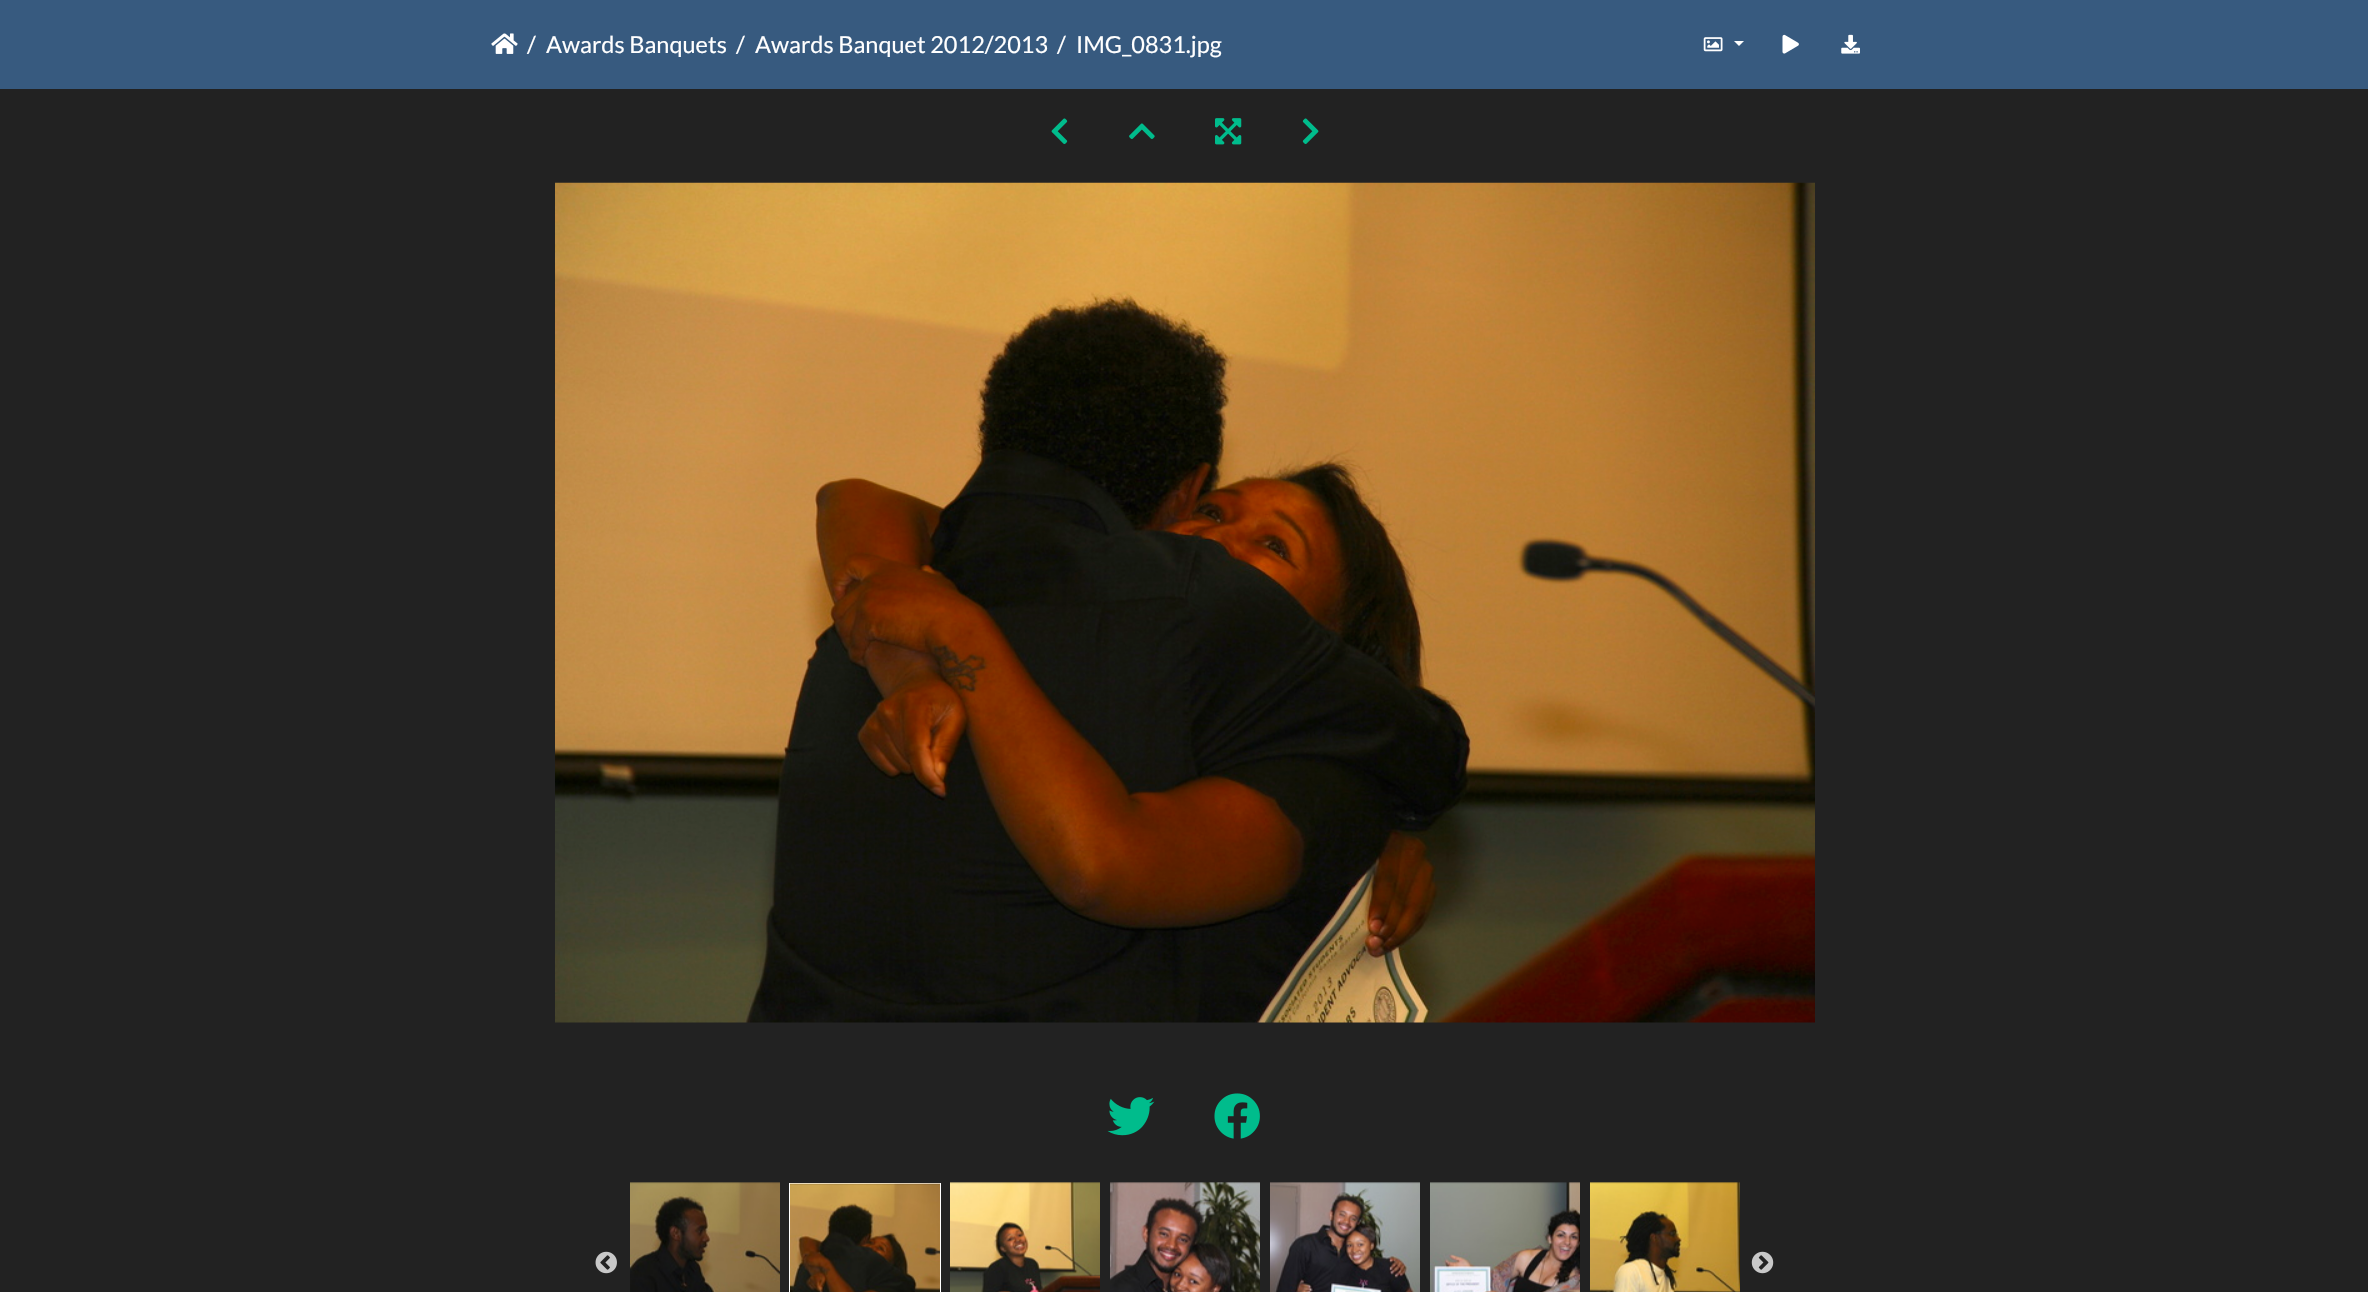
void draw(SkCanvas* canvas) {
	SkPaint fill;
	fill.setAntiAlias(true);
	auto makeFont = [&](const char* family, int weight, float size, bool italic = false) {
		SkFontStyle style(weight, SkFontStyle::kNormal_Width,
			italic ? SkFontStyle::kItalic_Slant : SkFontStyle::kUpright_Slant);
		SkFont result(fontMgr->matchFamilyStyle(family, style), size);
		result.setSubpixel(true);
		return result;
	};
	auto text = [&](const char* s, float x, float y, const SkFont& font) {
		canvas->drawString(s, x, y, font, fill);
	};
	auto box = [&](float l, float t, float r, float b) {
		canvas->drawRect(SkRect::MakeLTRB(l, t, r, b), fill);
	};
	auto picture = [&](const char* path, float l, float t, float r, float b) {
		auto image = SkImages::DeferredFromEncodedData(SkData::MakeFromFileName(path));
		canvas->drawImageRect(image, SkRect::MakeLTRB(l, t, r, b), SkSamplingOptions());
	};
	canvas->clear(0xFF222222);
	fill.setColor(0xFF375A7F);
	box(0, 0, 2368, 89);
	picture("image0.png", 491, 33, 518, 54);
	picture("image1.png", 1703, 37, 1723, 52);
	fill.setColor(0xFFFFFFFF);
	canvas->drawPath(SkPathBuilder().moveTo(1734, 41).lineTo(1744, 41).lineTo(1739, 46).close().detach(), fill);
	picture("image2.png", 1782, 34, 1799, 54);
	picture("image3.png", 1841, 34, 1860, 54);
	picture("image4.png", 1051, 118, 1068, 144);
	picture("image5.png", 1129, 123, 1155, 139);
	picture("image6.png", 1215, 118, 1242, 145);
	picture("image7.png", 1302, 118, 1319, 144);
	picture("image8.png", 555, 182, 1815, 1023);
	picture("image9.png", 1107, 1097, 1155, 1136);
	picture("image10.png", 1214, 1093, 1260, 1139);
	picture("image11.png", 595, 1251, 617, 1274);
	picture("image12.png", 630, 1182, 780, 1292);
	fill.setStyle(SkPaint::kStroke_Style);
	fill.setStrokeWidth(1);
	canvas->drawRect(SkRect::MakeLTRB(789.5f, 1183.5f, 940.5f, 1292.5f), fill);
	picture("image13.png", 790, 1183, 940, 1292);
	picture("image14.png", 950, 1182, 1100, 1292);
	picture("image15.png", 1110, 1182, 1260, 1292);
	picture("image16.png", 1270, 1182, 1420, 1292);
	picture("image17.png", 1430, 1182, 1580, 1292);
	picture("image18.png", 1590, 1182, 1740, 1292);
	picture("image19.png", 1751, 1251, 1774, 1274);
	auto font1 = makeFont("Lato", 400, 23.5f);
	fill.setStyle(SkPaint::kFill_Style);
	text("/", 527, 53, font1);
	text("Awards Banquets", 546, 53, font1);
	text("/", 736, 53, font1);
	text("Awards Banquet 2012/2013", 755, 53, font1);
	text("/", 1057, 53, font1);
	text("IMG_0831.jpg", 1076, 53, font1);
}
